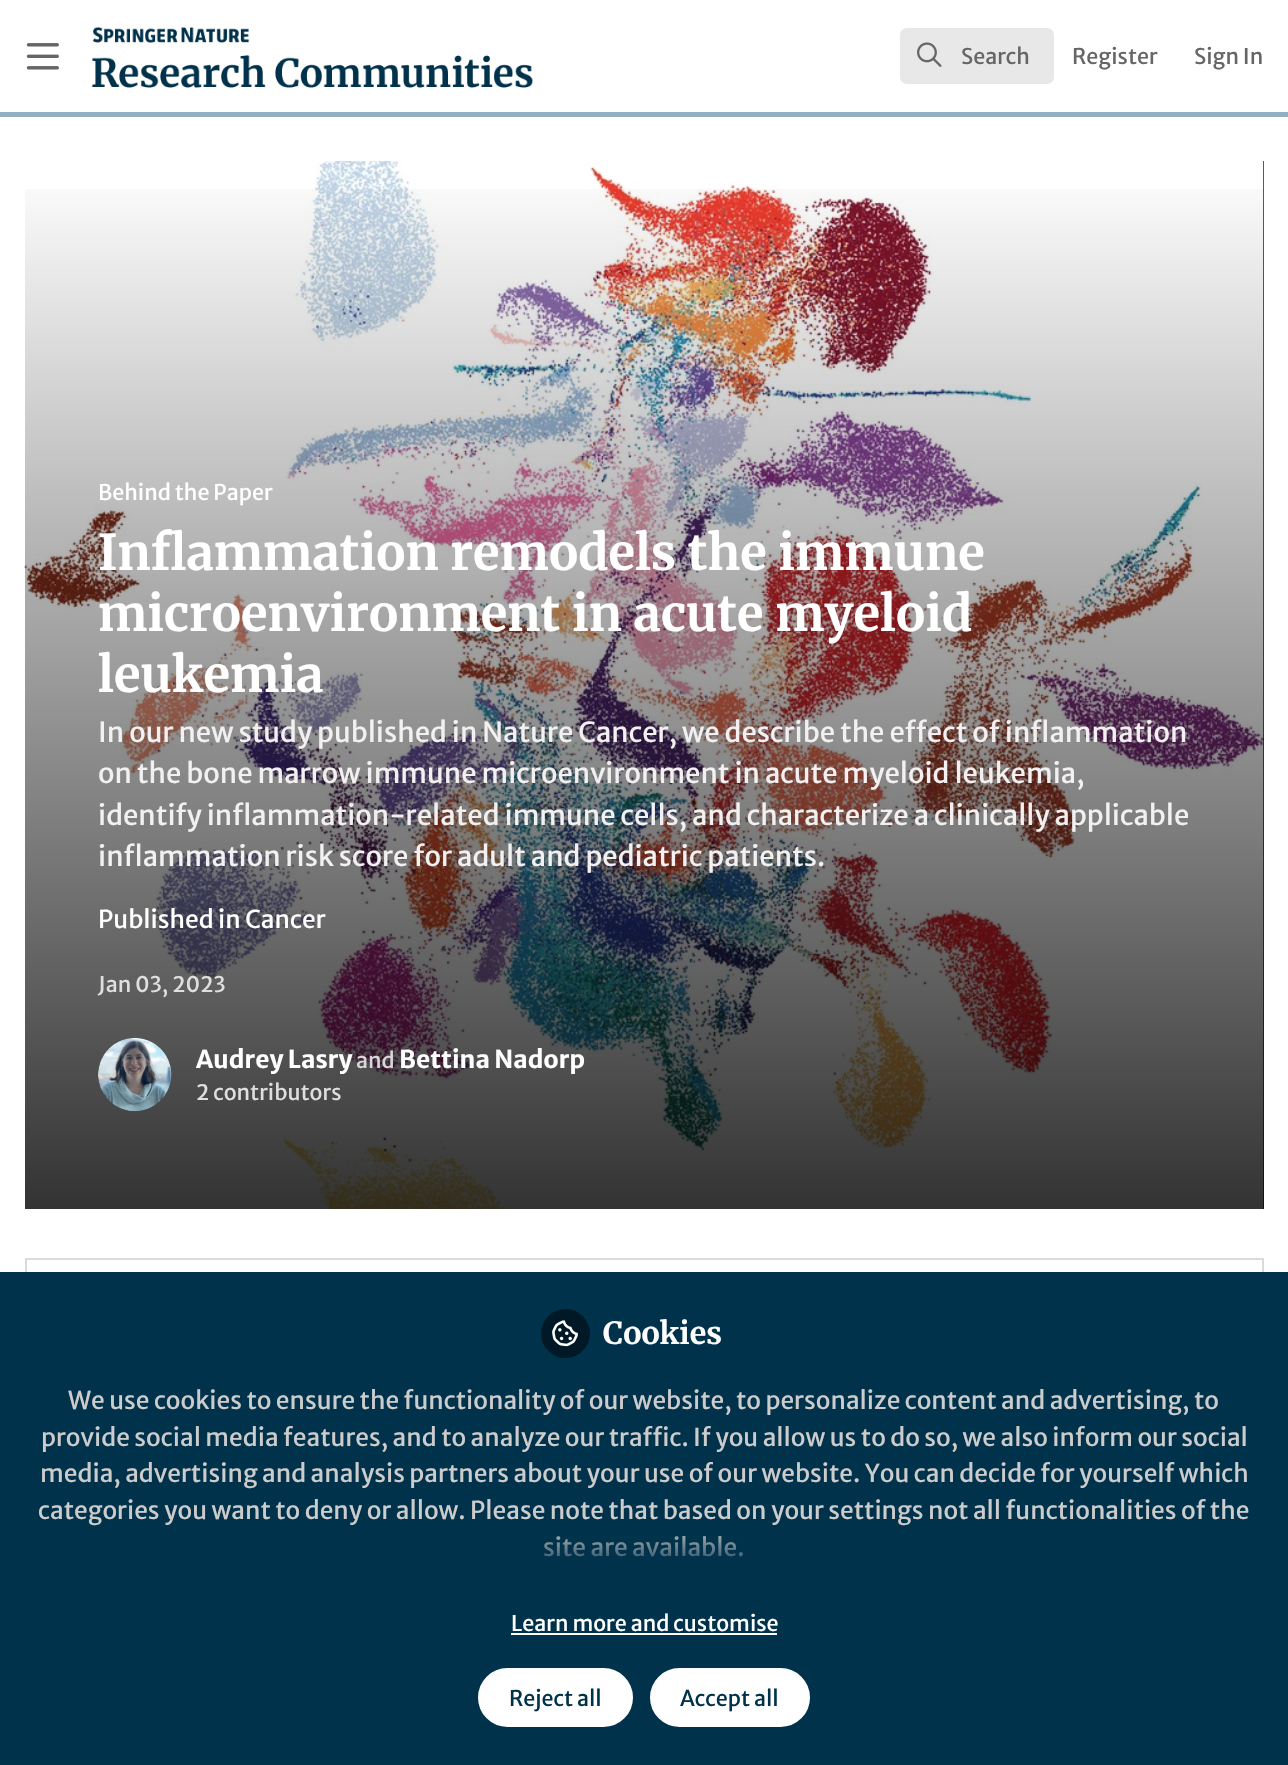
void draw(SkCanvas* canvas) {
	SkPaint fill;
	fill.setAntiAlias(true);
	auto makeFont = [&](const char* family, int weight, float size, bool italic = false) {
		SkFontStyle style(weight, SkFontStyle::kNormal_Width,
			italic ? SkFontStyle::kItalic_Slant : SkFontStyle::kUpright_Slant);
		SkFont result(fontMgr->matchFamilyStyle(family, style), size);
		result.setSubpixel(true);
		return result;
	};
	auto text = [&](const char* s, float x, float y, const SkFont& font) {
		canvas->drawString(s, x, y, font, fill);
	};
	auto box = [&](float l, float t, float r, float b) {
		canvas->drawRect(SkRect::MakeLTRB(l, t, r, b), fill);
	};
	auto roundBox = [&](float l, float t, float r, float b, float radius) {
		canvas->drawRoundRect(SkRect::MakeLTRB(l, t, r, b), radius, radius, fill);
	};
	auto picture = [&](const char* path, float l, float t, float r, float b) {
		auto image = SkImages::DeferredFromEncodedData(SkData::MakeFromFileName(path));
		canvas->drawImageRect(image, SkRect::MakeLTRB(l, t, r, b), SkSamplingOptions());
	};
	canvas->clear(0xFFFFFFFF);
	fill.setColor(0xFF90B0C2);
	box(0, 112, 1288, 117);
	picture("image0.png", 26, 43, 59, 70);
	picture("image1.png", 91, 26, 533, 88);
	fill.setColor(0xFFE8E8E8);
	roundBox(900, 28, 1054, 84, 7);
	picture("image2.png", 917, 42, 942, 67);
	fill.setColor(0xFF222222);
	box(1263, 161, 1264, 1209);
	picture("image3.png", 24, 161, 1264, 1210);
	{
		const SkColor colors[] = {0x00000000, 0xCC000000};
		const float stops[] = {0, 1};
		const SkPoint ends[] = {{644, 161}, {644, 1209}};
		fill.setShader(SkGradientShader::MakeLinear(ends, colors, stops, 2, SkTileMode::kClamp));
		fill.setAlpha(255);
	}
	box(25, 189, 1264, 1209);
	picture("image4.png", 98, 1037, 172, 1112);
	fill.setStyle(SkPaint::kStroke_Style);
	fill.setStrokeWidth(2);
	fill.setShader(nullptr);
	fill.setColor(0xFFDADADA);
	canvas->drawRect(SkRect::MakeLTRB(26, 1259, 1263, 1373), fill);
	fill.setStyle(SkPaint::kFill_Style);
	fill.setColor(0xFF01324B);
	box(0, 1272, 1288, 1765);
	fill.setColor(0xFF011926);
	canvas->drawCircle(565.5f, 1333.5f, 24.5f, fill);
	picture("image5.png", 552, 1320, 578, 1347);
	fill.setColor(0xFFFFFFFF);
	box(511, 1633, 777, 1635);
	canvas->drawRoundRect(SkRect::MakeLTRB(477, 1667, 634, 1728), 30.5f, 30.5f, fill);
	fill.setStyle(SkPaint::kStroke_Style);
	fill.setColor(0xFF01324B);
	canvas->drawRoundRect(SkRect::MakeLTRB(477, 1667, 634, 1728), 30.5f, 30.5f, fill);
	fill.setStyle(SkPaint::kFill_Style);
	fill.setColor(0xFFFFFFFF);
	canvas->drawRoundRect(SkRect::MakeLTRB(649, 1667, 811, 1728), 30.5f, 30.5f, fill);
	fill.setStyle(SkPaint::kStroke_Style);
	fill.setColor(0xFF01324B);
	canvas->drawRoundRect(SkRect::MakeLTRB(649, 1667, 811, 1728), 30.5f, 30.5f, fill);
	auto font1 = makeFont("Merriweather Sans", 400, 21.5f);
	fill.setStyle(SkPaint::kFill_Style);
	fill.setColor(0xFF666666);
	text("Search", 961, 64, font1);
	text("Register", 1072, 64, font1);
	text("Sign In", 1194, 64, font1);
	fill.setColor(0xFFFFFFFF);
	text("Behind the Paper", 98, 500, font1);
	auto font2 = makeFont("Merriweather", 700, 49);
	text("Inflammation remodels the immune", 98, 570, font2);
	text("microenvironment in acute myeloid", 98, 631, font2);
	text("leukemia", 98, 692, font2);
	auto font3 = makeFont("Merriweather Sans", 400, 27.55f);
	fill.setColor(0xFFF2F0F1);
	text("In our new study published in Nature Cancer, we describe the effect of inflammation", 98, 742, font3);
	text("on the bone marrow immune microenvironment in acute myeloid leukemia,", 98, 783, font3);
	text("identify inflammation-related immune cells, and characterize a clinically applicable", 98, 825, font3);
	text("inflammation risk score for adult and pediatric patients.", 98, 866, font3);
	auto font4 = makeFont("Merriweather Sans", 400, 24.5f);
	fill.setColor(0xFFFFFFFF);
	text("Published in Cancer", 98, 928, font4);
	fill.setColor(0xFFDFDFDF);
	text("Jan 03, 2023", 98, 992, font1);
	auto font5 = makeFont("Merriweather Sans", 700, 24.5f);
	fill.setColor(0xFFFFFFFF);
	text("Audrey Lasry", 196, 1068, font5);
	fill.setColor(0xFFD9D6D9);
	text("and", 356, 1068, font1);
	fill.setColor(0xFFFFFFFF);
	text("Bettina Nadorp", 399, 1068, font5);
	fill.setColor(0xFFDFDFDF);
	text("2 contributors", 196, 1100, font1);
	auto font6 = makeFont("Merriweather", 700, 30.5f);
	fill.setColor(0xFFFFFFFF);
	text("Cookies", 603, 1344, font6);
	fill.setColor(0xFFCCCCCC);
	text("We use cookies to ensure the functionality of our website, to personalize content and advertising, to", 68, 1409, font4);
	text("provide social media features, and to analyze our traffic. If you allow us to do so, we also inform our social", 41, 1446, font4);
	text("media, advertising and analysis partners about your use of our website. You can decide for yourself which", 40, 1482, font4);
	text("categories you want to deny or allow. Please note that based on your settings not all functionalities of the", 38, 1519, font4);
	text("site are available.", 543, 1556, font4);
	{
		const SkColor colors[] = {0xFF01324B, 0x0001324B};
		const float stops[] = {0, 1};
		const SkPoint ends[] = {{644, 1573}, {644, 1524}};
		fill.setShader(SkGradientShader::MakeLinear(ends, colors, stops, 2, SkTileMode::kClamp));
		fill.setAlpha(255);
	}
	box(544, 1536, 743, 1557);
	fill.setShader(nullptr);
	fill.setColor(0xFFFFFFFF);
	text("Learn more and customise", 511, 1631, font1);
	fill.setColor(0xFF01324B);
	text("Reject all", 509, 1706, font1);
	text("Accept all", 680, 1706, font1);
}
